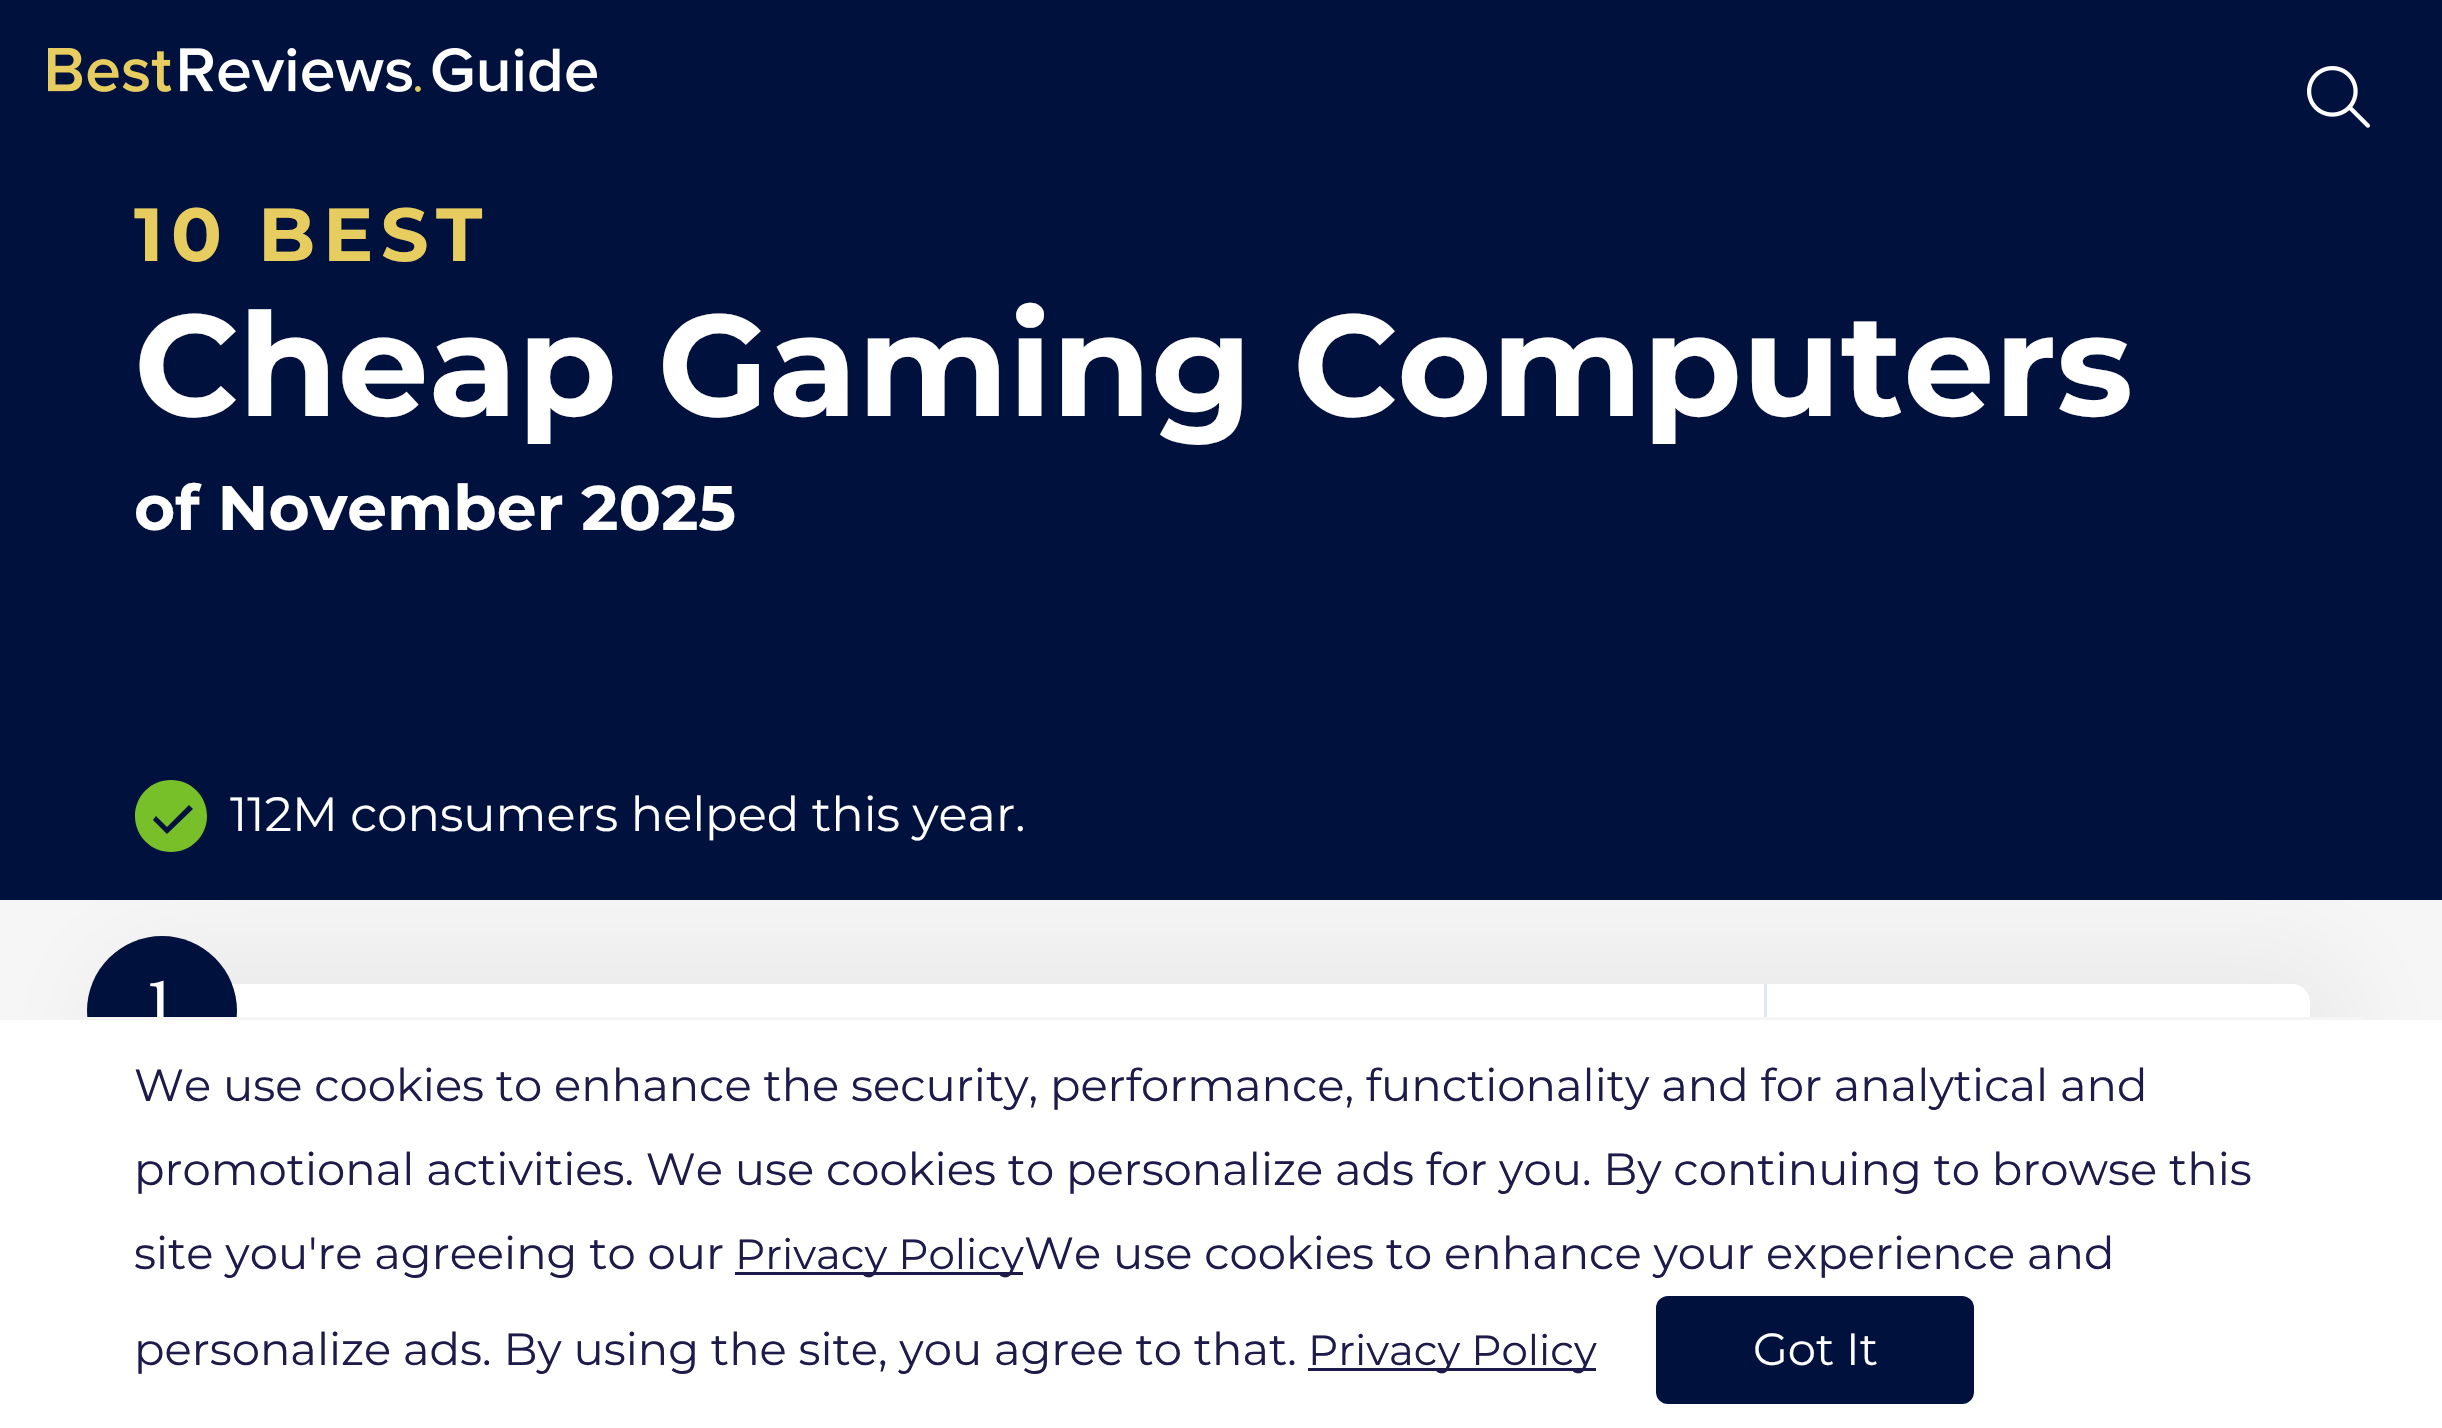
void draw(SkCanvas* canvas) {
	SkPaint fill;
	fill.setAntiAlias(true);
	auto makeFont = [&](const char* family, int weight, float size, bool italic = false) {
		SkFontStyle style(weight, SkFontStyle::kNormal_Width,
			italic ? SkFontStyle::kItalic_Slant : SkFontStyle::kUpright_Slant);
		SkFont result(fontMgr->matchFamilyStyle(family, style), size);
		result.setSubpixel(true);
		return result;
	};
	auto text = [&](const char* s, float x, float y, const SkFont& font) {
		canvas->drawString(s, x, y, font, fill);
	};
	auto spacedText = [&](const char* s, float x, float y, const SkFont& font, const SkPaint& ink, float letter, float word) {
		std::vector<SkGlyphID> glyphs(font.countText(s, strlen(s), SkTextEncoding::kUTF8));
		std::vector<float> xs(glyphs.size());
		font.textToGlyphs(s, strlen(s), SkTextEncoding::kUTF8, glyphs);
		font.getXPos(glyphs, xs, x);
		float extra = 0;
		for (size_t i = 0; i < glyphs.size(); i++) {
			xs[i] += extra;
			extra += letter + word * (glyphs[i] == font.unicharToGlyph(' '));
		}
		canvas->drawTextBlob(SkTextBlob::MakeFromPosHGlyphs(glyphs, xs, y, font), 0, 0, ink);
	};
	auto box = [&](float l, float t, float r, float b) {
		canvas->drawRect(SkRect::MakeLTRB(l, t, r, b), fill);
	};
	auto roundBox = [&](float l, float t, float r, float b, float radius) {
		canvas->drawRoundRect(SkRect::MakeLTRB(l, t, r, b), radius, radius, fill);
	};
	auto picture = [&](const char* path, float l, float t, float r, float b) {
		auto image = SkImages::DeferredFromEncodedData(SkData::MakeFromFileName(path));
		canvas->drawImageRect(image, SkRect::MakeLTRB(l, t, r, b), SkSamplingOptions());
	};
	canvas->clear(0xFFF7F7F7);
	fill.setColor(0xFF00113D);
	box(0, 0, 2442, 900);
	picture("image0.png", 48, 48, 597, 92);
	picture("image1.png", 2307, 66, 2370, 128);
	fill.setColor(0xFF78C02A);
	canvas->drawPath(SkPathBuilder(SkPathFillType::kEvenOdd).moveTo(171, 780).cubicTo(191, 780, 207, 796, 207, 816).cubicTo(207, 836, 191, 852, 171, 852).cubicTo(151, 852, 135, 836, 135, 816).cubicTo(135, 796, 151, 780, 171, 780).close().moveTo(189, 805).lineTo(167, 827).lineTo(156, 816).lineTo(153, 820).lineTo(167, 834).lineTo(193, 809).close().detach(), fill);
	fill.setColor(0x0D000000);
	fill.setMaskFilter(SkMaskFilter::MakeBlur(kNormal_SkBlurStyle, 52.5f));
	canvas->drawRoundRect(SkRect::MakeLTRB(90, 948, 2355, 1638), 63, 63, fill);
	fill.setMaskFilter(nullptr);
	fill.setColor(0xFFFFFFFF);
	roundBox(135, 984, 2310, 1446, 18);
	fill.setColor(0xFF00113D);
	canvas->drawCircle(162, 1011, 75, fill);
	fill.setColor(0xFFE2E8F0);
	box(1764, 984, 1767, 1017);
	fill.setColor(0xFFFFFFFF);
	box(0, 1020, 2442, 1428);
	fill.setColor(0xFF1E1B4B);
	box(735, 1272, 1023, 1275);
	box(1308, 1368, 1596, 1371);
	fill.setColor(0xFF00113D);
	roundBox(1656, 1296, 1974, 1404, 12);
	auto font1 = makeFont("Montserrat", 700, 75);
	fill.setColor(0xFFE7CD60);
	spacedText("10 BEST", 134, 261, font1, fill, 7.5f, 0);
	auto font2 = makeFont("Montserrat", 700, 144);
	fill.setColor(0xFFFFFFFF);
	text("Cheap Gaming Computers", 134, 416, font2);
	auto font3 = makeFont("Montserrat", 700, 63);
	text("of November 2025", 134, 530, font3);
	auto font4 = makeFont("Montserrat", 400, 48);
	text("112M consumers helped this year.", 230, 831, font4);
	auto font5 = makeFont("Libre Baskerville", 400, 63);
	text("1", 146, 1030, font5);
	fill.setColor(0xFFF5F5F5);
	box(82, 1017, 2363, 1020);
	auto font6 = makeFont("Montserrat", 400, 45);
	fill.setColor(0xFF1E1B4B);
	text("We use cookies to enhance the security, performance, functionality and for analytical and", 134, 1101, font6);
	text("promotional activities. We use cookies to personalize ads for you. By continuing to browse this", 134, 1185, font6);
	text("site you're agreeing to our", 134, 1269, font6);
	auto font7 = makeFont("Montserrat", 400, 42);
	text("Privacy Policy", 735, 1269, font7);
	text("We use cookies to enhance your experience and", 1024, 1269, font6);
	text("personalize ads. By using the site, you agree to that.", 134, 1365, font6);
	text("Privacy Policy", 1308, 1365, font7);
	fill.setColor(0xFFFFFFFF);
	text("Got It", 1753, 1365, font6);
}
